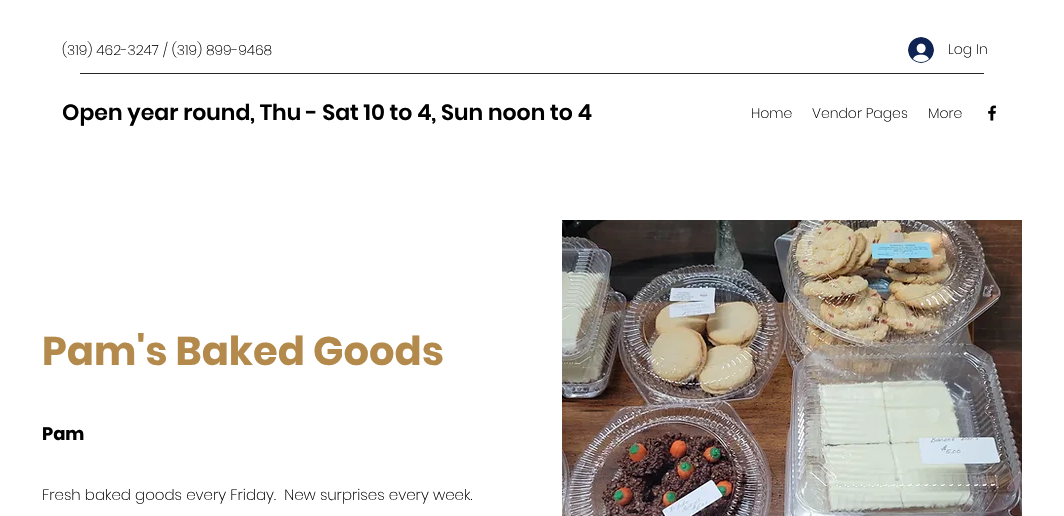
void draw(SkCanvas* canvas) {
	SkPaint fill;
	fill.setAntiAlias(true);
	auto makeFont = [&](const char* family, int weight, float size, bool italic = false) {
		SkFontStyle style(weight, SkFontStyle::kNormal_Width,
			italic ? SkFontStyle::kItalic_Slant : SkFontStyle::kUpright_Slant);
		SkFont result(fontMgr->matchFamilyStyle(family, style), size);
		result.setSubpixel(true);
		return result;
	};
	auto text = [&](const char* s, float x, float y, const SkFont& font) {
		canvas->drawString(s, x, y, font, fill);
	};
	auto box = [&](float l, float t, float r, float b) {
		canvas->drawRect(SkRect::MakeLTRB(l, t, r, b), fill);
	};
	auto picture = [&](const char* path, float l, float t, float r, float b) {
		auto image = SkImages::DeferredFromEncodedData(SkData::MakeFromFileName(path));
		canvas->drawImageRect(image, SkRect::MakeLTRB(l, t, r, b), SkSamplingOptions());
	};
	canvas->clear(0xFFFFFFFF);
	picture("image0.png", 908, 37, 934, 63);
	fill.setColor(0xFF262626);
	box(80, 73, 984, 74);
	picture("image1.png", 988, 105, 997, 121);
	picture("image2.png", 562, 220, 1022, 516);
	auto font1 = makeFont("Poppins", 200, 14);
	fill.setColor(0xFF000000);
	text("(319) 462-3247 / (319) 899-9468", 62, 55, font1);
	text("Log In", 948, 54, font1);
	auto font2 = makeFont("Poppins", 600, 22);
	text("Open year round, Thu - Sat 10 to 4, Sun noon to 4", 62, 120, font2);
	text("Home", 751, 118, font1);
	text("Vendor Pages", 812, 118, font1);
	text("More", 928, 118, font1);
	auto font3 = makeFont("Poppins", 700, 40);
	fill.setColor(0xFFB38A4C);
	text("Pam's Baked Goods", 42, 365, font3);
	auto font4 = makeFont("Poppins", 700, 18);
	fill.setColor(0xFF000000);
	text("Pam", 42, 440, font4);
	auto font5 = makeFont("Poppins", 200, 15);
	text("Fresh baked goods every Friday.  New surprises every week.", 42, 500, font5);
}
